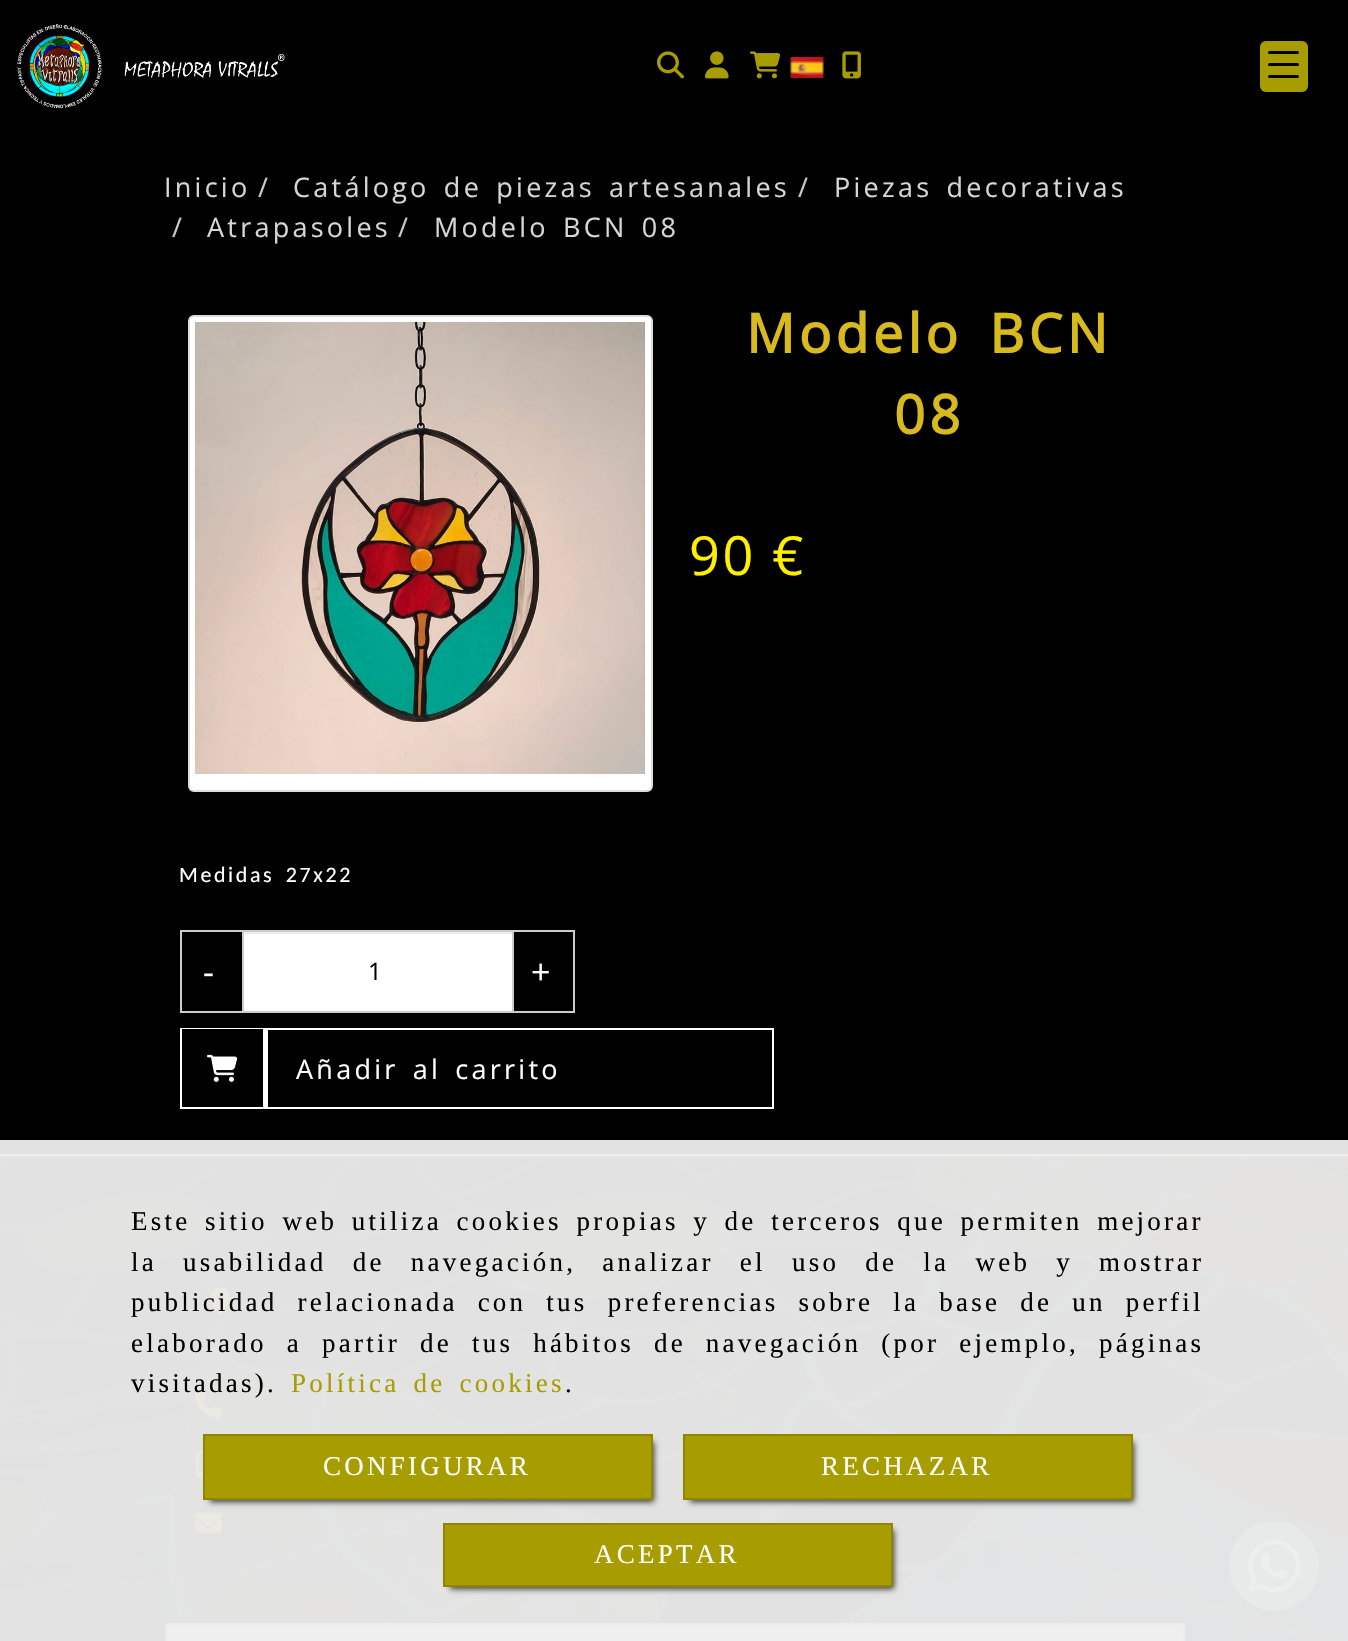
void draw(SkCanvas* canvas) {
	SkPaint fill;
	fill.setAntiAlias(true);
	auto makeFont = [&](const char* family, int weight, float size, bool italic = false) {
		SkFontStyle style(weight, SkFontStyle::kNormal_Width,
			italic ? SkFontStyle::kItalic_Slant : SkFontStyle::kUpright_Slant);
		SkFont result(fontMgr->matchFamilyStyle(family, style), size);
		result.setSubpixel(true);
		return result;
	};
	auto spacedText = [&](const char* s, float x, float y, const SkFont& font, const SkPaint& ink, float letter, float word) {
		std::vector<SkGlyphID> glyphs(font.countText(s, strlen(s), SkTextEncoding::kUTF8));
		std::vector<float> xs(glyphs.size());
		font.textToGlyphs(s, strlen(s), SkTextEncoding::kUTF8, glyphs);
		font.getXPos(glyphs, xs, x);
		float extra = 0;
		for (size_t i = 0; i < glyphs.size(); i++) {
			xs[i] += extra;
			extra += letter + word * (glyphs[i] == font.unicharToGlyph(' '));
		}
		canvas->drawTextBlob(SkTextBlob::MakeFromPosHGlyphs(glyphs, xs, y, font), 0, 0, ink);
	};
	auto box = [&](float l, float t, float r, float b) {
		canvas->drawRect(SkRect::MakeLTRB(l, t, r, b), fill);
	};
	auto roundBox = [&](float l, float t, float r, float b, float radius) {
		canvas->drawRoundRect(SkRect::MakeLTRB(l, t, r, b), radius, radius, fill);
	};
	auto picture = [&](const char* path, float l, float t, float r, float b) {
		auto image = SkImages::DeferredFromEncodedData(SkData::MakeFromFileName(path));
		canvas->drawImageRect(image, SkRect::MakeLTRB(l, t, r, b), SkSamplingOptions());
	};
	canvas->clear(0xFF000000);
	fill.setColor(0xFFE2E2E2);
	box(0, 1140, 1348, 1154);
	picture("image0.png", 17, 23, 285, 109);
	picture("image1.png", 657, 51, 684, 79);
	picture("image2.png", 705, 51, 729, 79);
	picture("image3.png", 750, 51, 781, 79);
	picture("image4.png", 790, 57, 824, 78);
	picture("image5.png", 842, 51, 861, 79);
	fill.setColor(0xFFA89D00);
	roundBox(1260, 41, 1308, 92, 6);
	fill.setColor(0xFF000000);
	roundBox(1268, 63, 1299, 66, 1.5f);
	roundBox(1268, 51, 1299, 54, 1.5f);
	roundBox(1268, 75, 1299, 78, 1.5f);
	fill.setColor(0xFFFFFFFF);
	canvas->drawRoundRect(SkRect::MakeLTRB(189, 316, 652, 791), 5, 5, fill);
	fill.setStyle(SkPaint::kStroke_Style);
	fill.setStrokeWidth(2);
	fill.setColor(0xFFDDDDDD);
	canvas->drawRoundRect(SkRect::MakeLTRB(189, 316, 652, 791), 5, 5, fill);
	picture("image6.png", 194, 322, 645, 774);
	fill.setColor(0xFFCCCCCC);
	canvas->drawRect(SkRect::MakeLTRB(181, 931, 574, 1012), fill);
	fill.setStyle(SkPaint::kFill_Style);
	fill.setColor(0xFFFFFFFF);
	box(244, 934, 512, 1011);
	fill.setColor(0xFFECECEC);
	box(243, 932, 512, 934);
	fill.setColor(0xFFCCCCCC);
	box(512, 932, 514, 1011);
	box(242, 932, 244, 1011);
	fill.setStyle(SkPaint::kStroke_Style);
	fill.setColor(0xFFFFFFFF);
	canvas->drawRect(SkRect::MakeLTRB(181, 1029, 773, 1108), fill);
	fill.setStyle(SkPaint::kFill_Style);
	fill.setColor(0xFF000000);
	box(182, 1029, 263, 1030);
	fill.setColor(0xFFFFFFFF);
	box(263, 1029, 268, 1107);
	picture("image7.png", 207, 1054, 238, 1082);
	fill.setColor(0xFFEFEFEF);
	box(0, 1154, 1348, 1157);
	picture("image9.png", 0, 1156, 1348, 1641);
	fill.setColor(0xFFE6EBE9);
	canvas->drawCircle(1274, 1566, 45, fill);
	picture("image8.png", 1248, 1539, 1301, 1593);
	picture("image10.png", 210, 1287, 231, 1315);
	picture("image11.png", 195, 1390, 222, 1418);
	picture("image12.png", 195, 1450, 203, 1478);
	picture("image13.png", 195, 1512, 222, 1533);
	fill.setColor(0xFFEFEFEF);
	box(167, 1627, 1183, 1641);
	fill.setColor(0xFFEEEEEE);
	box(167, 1625, 1184, 1627);
	fill.setStyle(SkPaint::kStroke_Style);
	fill.setColor(0xFFECECEC);
	canvas->drawRect(SkRect::MakeLTRB(166, 1624, 1184, 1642), fill);
	fill.setStyle(SkPaint::kFill_Style);
	fill.setColor(0xBF000000);
	fill.setMaskFilter(SkMaskFilter::MakeBlur(kNormal_SkBlurStyle, 3));
	canvas->drawRect(SkRect::MakeLTRB(210, 1442, 654, 1502), fill);
	fill.setMaskFilter(nullptr);
	fill.setColor(0xFFA89D00);
	canvas->drawRect(SkRect::MakeLTRB(204, 1435, 652, 1499), fill);
	fill.setStyle(SkPaint::kStroke_Style);
	fill.setColor(0xFF8F8500);
	canvas->drawRect(SkRect::MakeLTRB(204, 1435, 652, 1499), fill);
	fill.setStyle(SkPaint::kFill_Style);
	fill.setColor(0xBF000000);
	fill.setMaskFilter(SkMaskFilter::MakeBlur(kNormal_SkBlurStyle, 3));
	canvas->drawRect(SkRect::MakeLTRB(690, 1442, 1134, 1502), fill);
	fill.setMaskFilter(nullptr);
	fill.setColor(0xFFA89D00);
	canvas->drawRect(SkRect::MakeLTRB(684, 1435, 1132, 1499), fill);
	fill.setStyle(SkPaint::kStroke_Style);
	fill.setColor(0xFF8F8500);
	canvas->drawRect(SkRect::MakeLTRB(684, 1435, 1132, 1499), fill);
	fill.setStyle(SkPaint::kFill_Style);
	fill.setColor(0xBF000000);
	fill.setMaskFilter(SkMaskFilter::MakeBlur(kNormal_SkBlurStyle, 3));
	canvas->drawRect(SkRect::MakeLTRB(450, 1530, 894, 1589), fill);
	fill.setMaskFilter(nullptr);
	fill.setColor(0xFFA89D00);
	canvas->drawRect(SkRect::MakeLTRB(444, 1524, 892, 1586), fill);
	fill.setStyle(SkPaint::kStroke_Style);
	fill.setColor(0xFF8F8500);
	canvas->drawRect(SkRect::MakeLTRB(444, 1524, 892, 1586), fill);
	auto font1 = makeFont("Open Sans", 400, 27);
	fill.setStyle(SkPaint::kFill_Style);
	fill.setColor(0xFFD6D6D6);
	spacedText("Inicio", 164, 197, font1, fill, 3.25f, 0);
	fill.setColor(0xFFCCCCCC);
	spacedText("/", 258, 197, font1, fill, 3.25f, 0);
	fill.setColor(0xFFD6D6D6);
	spacedText("Catálogo de piezas artesanales", 293, 197, font1, fill, 3.25f, 4);
	fill.setColor(0xFFCCCCCC);
	spacedText("/", 798, 197, font1, fill, 3.25f, 0);
	fill.setColor(0xFFD6D6D6);
	spacedText("Piezas decorativas", 834, 197, font1, fill, 3.25f, 4);
	fill.setColor(0xFFCCCCCC);
	spacedText("/", 172, 237, font1, fill, 3.25f, 0);
	fill.setColor(0xFFD6D6D6);
	spacedText("Atrapasoles", 207, 237, font1, fill, 3.25f, 0);
	fill.setColor(0xFFCCCCCC);
	spacedText("/", 398, 237, font1, fill, 3.25f, 0);
	fill.setColor(0xFFD6D6D6);
	spacedText("Modelo BCN 08", 434, 237, font1, fill, 3.25f, 4);
	auto font2 = makeFont("Open Sans", 700, 54);
	fill.setColor(0xFFD9BA1E);
	spacedText("Modelo BCN", 746, 353, font2, fill, 4.25f, 9);
	spacedText("08", 894, 434, font2, fill, 4.25f, 0);
	auto font3 = makeFont("Open Sans", 400, 54);
	fill.setColor(0xFFFFEE00);
	spacedText("90 €", 689, 575, font3, fill, 2.5f, 0);
	auto font4 = makeFont("Carlito", 400, 22);
	fill.setColor(0xFFFFFFFF);
	spacedText("Medidas 27x22", 179, 882, font4, fill, 2.6f, 4);
	auto font5 = makeFont("Open Sans", 400, 34);
	spacedText("-", 203, 984, font5, fill, 4, 0);
	auto font6 = makeFont("Open Sans", 400, 24);
	fill.setColor(0xFF000000);
	spacedText("1", 368, 980, font6, fill, 3, 0);
	fill.setColor(0xFFFFFFFF);
	spacedText("+", 531, 984, font5, fill, 4, 0);
	spacedText("Añadir al carrito", 296, 1079, font1, fill, 3.25f, 4);
	auto font7 = makeFont("Liberation Serif", 400, 27);
	fill.setColor(0xFF000000);
	spacedText("Este sitio web utiliza cookies propias y de terceros que permiten mejorar", 131, 1230, font7, fill, 3.25f, 4.6f);
	spacedText("la usabilidad de navegación, analizar el uso de la web y mostrar", 131, 1271, font7, fill, 3.25f, 16.1f);
	spacedText("publicidad relacionada con tus preferencias sobre la base de un perfil", 131, 1311, font7, fill, 3.25f, 10);
	spacedText("elaborado a partir de tus hábitos de navegación (por ejemplo, páginas", 131, 1352, font7, fill, 3.25f, 10);
	spacedText("visitadas).", 131, 1392, font7, fill, 3.25f, 0);
	fill.setColor(0xFFA89D00);
	spacedText("Política de cookies", 291, 1392, font7, fill, 3.25f, 4);
	fill.setColor(0xFF000000);
	spacedText(".", 565, 1392, font7, fill, 3.25f, 0);
	fill.setColor(0xFFFFFFFF);
	spacedText("CONFIGURAR", 323, 1475, font7, fill, 3.25f, 0);
	spacedText("RECHAZAR", 821, 1475, font7, fill, 3.25f, 0);
	spacedText("ACEPTAR", 594, 1563, font7, fill, 3.25f, 0);
}
